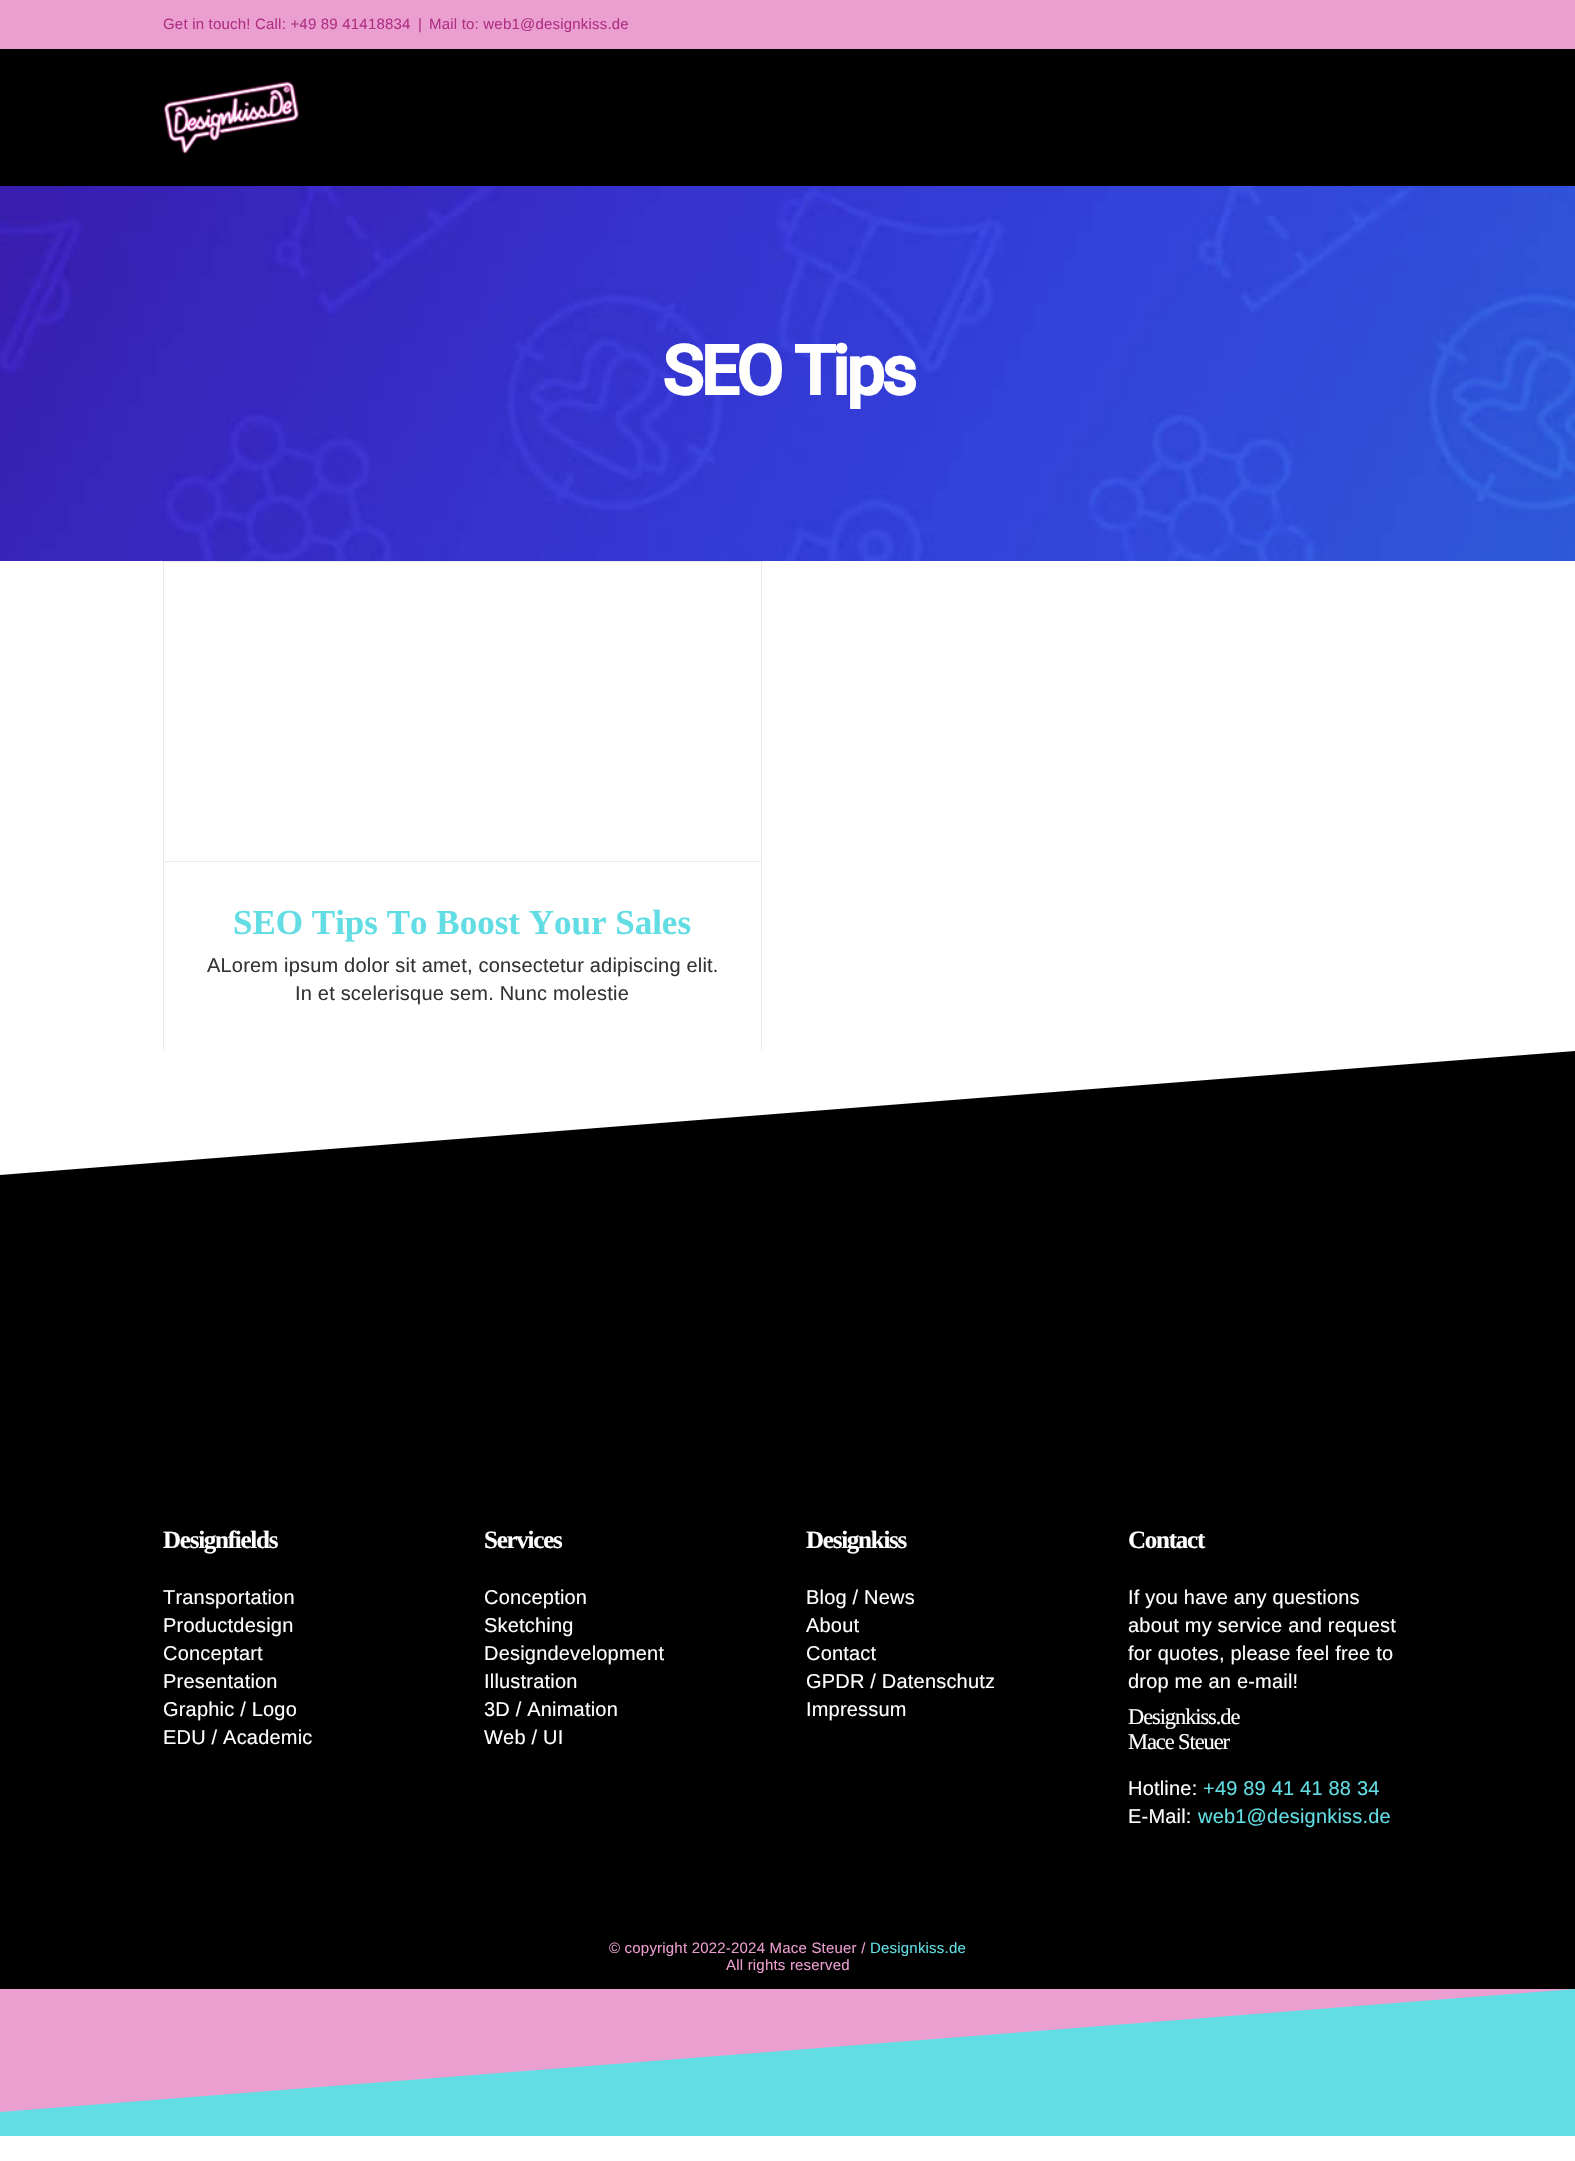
void draw(SkCanvas* canvas) {
	SkPaint fill;
	fill.setAntiAlias(true);
	auto makeFont = [&](const char* family, int weight, float size, bool italic = false) {
		SkFontStyle style(weight, SkFontStyle::kNormal_Width,
			italic ? SkFontStyle::kItalic_Slant : SkFontStyle::kUpright_Slant);
		SkFont result(fontMgr->matchFamilyStyle(family, style), size);
		result.setSubpixel(true);
		return result;
	};
	auto text = [&](const char* s, float x, float y, const SkFont& font) {
		canvas->drawString(s, x, y, font, fill);
	};
	auto spacedText = [&](const char* s, float x, float y, const SkFont& font, const SkPaint& ink, float letter, float word) {
		std::vector<SkGlyphID> glyphs(font.countText(s, strlen(s), SkTextEncoding::kUTF8));
		std::vector<float> xs(glyphs.size());
		font.textToGlyphs(s, strlen(s), SkTextEncoding::kUTF8, glyphs);
		font.getXPos(glyphs, xs, x);
		float extra = 0;
		for (size_t i = 0; i < glyphs.size(); i++) {
			xs[i] += extra;
			extra += letter + word * (glyphs[i] == font.unicharToGlyph(' '));
		}
		canvas->drawTextBlob(SkTextBlob::MakeFromPosHGlyphs(glyphs, xs, y, font), 0, 0, ink);
	};
	auto box = [&](float l, float t, float r, float b) {
		canvas->drawRect(SkRect::MakeLTRB(l, t, r, b), fill);
	};
	auto picture = [&](const char* path, float l, float t, float r, float b) {
		auto image = SkImages::DeferredFromEncodedData(SkData::MakeFromFileName(path));
		canvas->drawImageRect(image, SkRect::MakeLTRB(l, t, r, b), SkSamplingOptions());
	};
	canvas->clear(0xFFFFFFFF);
	fill.setColor(0xFFEB9ED0);
	box(0, 0, 1575, 49);
	fill.setColor(0xFF000000);
	box(0, 49, 1575, 186);
	picture("image0.png", 163, 81, 299, 154);
	picture("image1.png", 0, 186, 1575, 561);
	fill.setColor(0xFFE8EAF0);
	box(163, 561, 763, 562);
	box(761, 561, 762, 1051);
	box(163, 561, 164, 1051);
	box(164, 861, 761, 862);
	fill.setColor(0xFF000000);
	box(0, 1051, 1575, 1989);
	fill.setColor(0xFFFFFFFF);
	canvas->drawPath(SkPathBuilder().moveTo(0, 1175).lineTo(0, 1051).lineTo(1575, 1051).close().detach(), fill);
	fill.setColor(0xFF62DDE3);
	box(0, 1989, 1575, 2136);
	fill.setColor(0xFFEB9ED0);
	canvas->drawPath(SkPathBuilder().moveTo(0, 2112).lineTo(0, 1989).lineTo(1575, 1989).close().detach(), fill);
	auto font1 = makeFont("Liberation Sans", 400, 15);
	fill.setColor(0xFFAF3083);
	spacedText("Get in touch! Call: +49 89 41418834", 163, 29, font1, fill, 0.2f, 0);
	spacedText("|", 418, 29, font1, fill, 0.2f, 0);
	spacedText("Mail to: web1@designkiss.de", 429, 29, font1, fill, 0.2f, 0);
	auto font2 = makeFont("Roboto", 700, 69);
	fill.setColor(0xFFFFFFFF);
	spacedText("SEO Tips", 662, 395, font2, fill, -3.5f, 0);
	auto font3 = makeFont("Liberation Serif", 700, 35);
	fill.setColor(0xFF62DDE3);
	text("SEO Tips To Boost Your Sales", 233, 934, font3);
	auto font4 = makeFont("Liberation Sans", 400, 20);
	fill.setColor(0xFF333333);
	spacedText("ALorem ipsum dolor sit amet, consectetur adipiscing elit.", 207, 972, font4, fill, 0.2f, 0);
	spacedText("In et scelerisque sem. Nunc molestie", 295, 1000, font4, fill, 0.2f, 0);
	auto font5 = makeFont("Liberation Serif", 700, 25);
	fill.setColor(0xFFFFFFFF);
	spacedText("Designfields", 163, 1548, font5, fill, -1.25f, 0);
	spacedText("Transportation", 163, 1604, font4, fill, 0.2f, 0);
	spacedText("Productdesign", 163, 1632, font4, fill, 0.2f, 0);
	spacedText("Conceptart", 163, 1660, font4, fill, 0.2f, 0);
	spacedText("Presentation", 163, 1688, font4, fill, 0.2f, 0);
	spacedText("Graphic / Logo", 163, 1716, font4, fill, 0.2f, 0);
	spacedText("EDU / Academic", 163, 1744, font4, fill, 0.2f, 0);
	spacedText("Services", 484, 1548, font5, fill, -1.25f, 0);
	spacedText("Conception", 484, 1604, font4, fill, 0.2f, 0);
	spacedText("Sketching", 484, 1632, font4, fill, 0.2f, 0);
	spacedText("Designdevelopment", 484, 1660, font4, fill, 0.2f, 0);
	spacedText("Illustration", 484, 1688, font4, fill, 0.2f, 0);
	spacedText("3D / Animation", 484, 1716, font4, fill, 0.2f, 0);
	spacedText("Web / UI", 484, 1744, font4, fill, 0.2f, 0);
	spacedText("Designkiss", 806, 1548, font5, fill, -1.25f, 0);
	spacedText("Blog / News", 806, 1604, font4, fill, 0.2f, 0);
	spacedText("About", 806, 1632, font4, fill, 0.2f, 0);
	spacedText("Contact", 806, 1660, font4, fill, 0.2f, 0);
	spacedText("GPDR / Datenschutz", 806, 1688, font4, fill, 0.2f, 0);
	spacedText("Impressum", 806, 1716, font4, fill, 0.2f, 0);
	spacedText("Contact", 1128, 1548, font5, fill, -1.25f, 0);
	spacedText("If you have any questions", 1128, 1604, font4, fill, 0.2f, 0);
	spacedText("about my service and request", 1128, 1632, font4, fill, 0.2f, 0);
	spacedText("for quotes, please feel free to", 1128, 1660, font4, fill, 0.2f, 0);
	spacedText("drop me an e-mail!", 1128, 1688, font4, fill, 0.2f, 0);
	auto font6 = makeFont("Liberation Serif", 400, 22.5f);
	spacedText("Designkiss.de", 1128, 1724, font6, fill, -1.1f, 0);
	spacedText("Mace Steuer", 1128, 1749, font6, fill, -1.1f, 0);
	spacedText("Hotline:", 1128, 1795, font4, fill, 0.2f, 0);
	fill.setColor(0xFF62DDE3);
	spacedText("+49 89 41 41 88 34", 1203, 1795, font4, fill, 0.2f, 0);
	fill.setColor(0xFFFFFFFF);
	spacedText("E-Mail:", 1128, 1823, font4, fill, 0.2f, 0);
	fill.setColor(0xFF62DDE3);
	spacedText("web1@designkiss.de", 1198, 1823, font4, fill, 0.2f, 0);
	fill.setColor(0xFFEB9ED0);
	spacedText("© copyright 2022-2024 Mace Steuer /", 609, 1953, font1, fill, 0.2f, 0);
	fill.setColor(0xFF62DDE3);
	spacedText("Designkiss.de", 870, 1953, font1, fill, 0.2f, 0);
	fill.setColor(0xFFEB9ED0);
	spacedText("All rights reserved", 726, 1970, font1, fill, 0.2f, 0);
}
